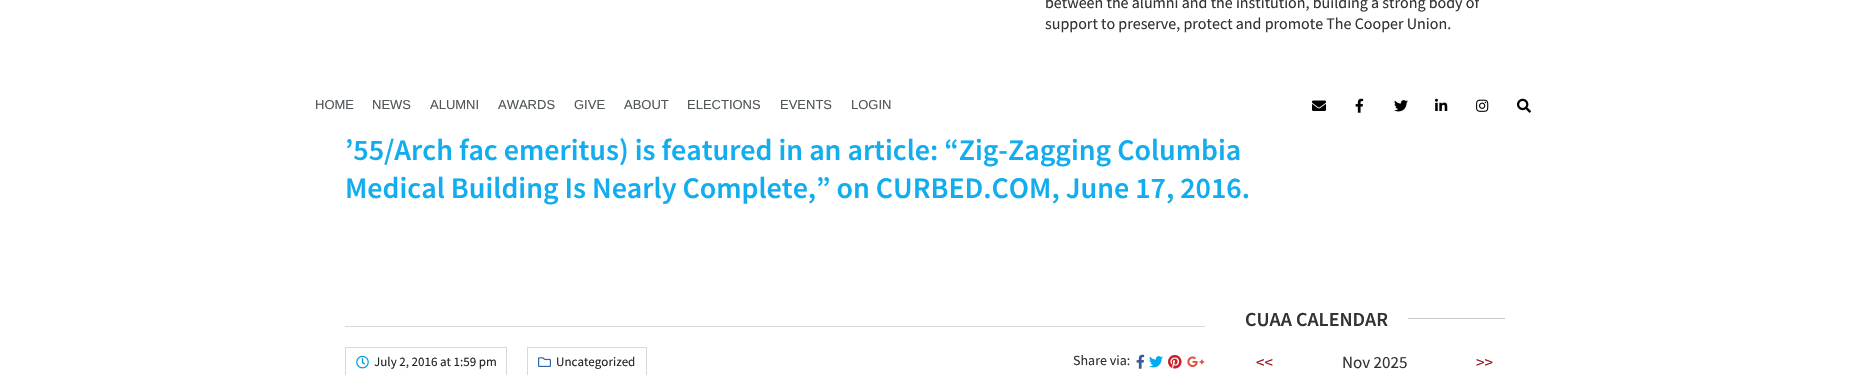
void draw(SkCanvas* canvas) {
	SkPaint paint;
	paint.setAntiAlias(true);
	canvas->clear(0xffffffff);
	SkFont f1(fontMgr->matchFamilyStyle("Source Sans Pro", SkFontStyle::Normal()), 16);
	f1.setSubpixel(true);
	paint.setColor(0xff333333);
	canvas->drawString("between the alumni and the institution, building a strong body of", 1045, 8, f1, paint);
	canvas->drawString("support to preserve, protect and promote The Cooper Union.", 1045, 29, f1, paint);
	SkFont f2(fontMgr->matchFamilyStyle("Liberation Sans", SkFontStyle::Normal()), 13);
	f2.setSubpixel(true);
	paint.setColor(0xff515659);
	canvas->drawString("HOME", 315, 109, f2, paint);
	canvas->drawString("NEWS", 372, 109, f2, paint);
	canvas->drawString("ALUMNI", 430, 109, f2, paint);
	canvas->drawString("AWARDS", 498, 109, f2, paint);
	canvas->drawString("GIVE", 574, 109, f2, paint);
	canvas->drawString("ABOUT", 624, 109, f2, paint);
	canvas->drawString("ELECTIONS", 687, 109, f2, paint);
	canvas->drawString("EVENTS", 780, 109, f2, paint);
	canvas->drawString("LOGIN", 851, 109, f2, paint);
	canvas->drawImageRect(SkImages::DeferredFromEncodedData(SkData::MakeFromFileName("img1.png")), SkRect::MakeXYWH(1312, 100, 14, 11), SkSamplingOptions());
	canvas->drawImageRect(SkImages::DeferredFromEncodedData(SkData::MakeFromFileName("img2.png")), SkRect::MakeXYWH(1355, 98, 9, 15), SkSamplingOptions());
	canvas->drawImageRect(SkImages::DeferredFromEncodedData(SkData::MakeFromFileName("img3.png")), SkRect::MakeXYWH(1394, 100, 14, 12), SkSamplingOptions());
	canvas->drawImageRect(SkImages::DeferredFromEncodedData(SkData::MakeFromFileName("img4.png")), SkRect::MakeXYWH(1435, 98, 13, 13), SkSamplingOptions());
	canvas->drawImageRect(SkImages::DeferredFromEncodedData(SkData::MakeFromFileName("img5.png")), SkRect::MakeXYWH(1476, 99, 13, 13), SkSamplingOptions());
	canvas->drawImageRect(SkImages::DeferredFromEncodedData(SkData::MakeFromFileName("img6.png")), SkRect::MakeXYWH(1517, 98, 14, 15), SkSamplingOptions());
	SkFont f3(fontMgr->matchFamilyStyle("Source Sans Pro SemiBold", SkFontStyle(600, SkFontStyle::kNormal_Width, SkFontStyle::kUpright_Slant)), 30);
	f3.setSubpixel(true);
	paint.setColor(0xff12adee);
	canvas->drawString("’55/Arch fac emeritus) is featured in an article: “Zig-Zagging Columbia", 345, 160, f3, paint);
	canvas->drawString("Medical Building Is Nearly Complete,” on CURBED.COM, June 17, 2016.", 345, 198, f3, paint);
	paint.setColor(0xffd9d9d9);
	canvas->drawRect(SkRect::MakeXYWH(345, 326, 860, 1), paint);
	paint.setStroke(true);
	paint.setStrokeWidth(1);
	canvas->drawRect(SkRect::MakeXYWH(345.5, 347.5, 161, 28), paint);
	canvas->drawImageRect(SkImages::DeferredFromEncodedData(SkData::MakeFromFileName("img7.png")), SkRect::MakeXYWH(356, 355, 13, 14), SkSamplingOptions());
	SkFont f4(fontMgr->matchFamilyStyle("Source Sans Pro", SkFontStyle::Normal()), 13);
	f4.setSubpixel(true);
	paint.setStroke(false);
	paint.setColor(0xff252525);
	canvas->drawString("July 2, 2016 at 1:59 pm", 374, 366, f4, paint);
	paint.setStroke(true);
	paint.setColor(0xffd9d9d9);
	canvas->drawRect(SkRect::MakeXYWH(527.5, 347.5, 119, 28), paint);
	canvas->drawImageRect(SkImages::DeferredFromEncodedData(SkData::MakeFromFileName("img8.png")), SkRect::MakeXYWH(538, 357, 13, 10), SkSamplingOptions());
	paint.setStroke(false);
	paint.setColor(0xff252525);
	canvas->drawString("Uncategorized", 556, 366, f4, paint);
	SkFont f5(fontMgr->matchFamilyStyle("Source Sans Pro", SkFontStyle::Normal()), 14);
	f5.setSubpixel(true);
	paint.setColor(0xff333333);
	canvas->drawString("Share via:", 1073, 365, f5, paint);
	canvas->drawImageRect(SkImages::DeferredFromEncodedData(SkData::MakeFromFileName("img9.png")), SkRect::MakeXYWH(1136, 354, 9, 15), SkSamplingOptions());
	canvas->drawImageRect(SkImages::DeferredFromEncodedData(SkData::MakeFromFileName("img10.png")), SkRect::MakeXYWH(1149, 356, 14, 12), SkSamplingOptions());
	canvas->drawImageRect(SkImages::DeferredFromEncodedData(SkData::MakeFromFileName("img11.png")), SkRect::MakeXYWH(1168, 355, 14, 14), SkSamplingOptions());
	canvas->drawImageRect(SkImages::DeferredFromEncodedData(SkData::MakeFromFileName("img12.png")), SkRect::MakeXYWH(1187, 356, 18, 11), SkSamplingOptions());
	paint.setColor(0xffc7c7c7);
	canvas->drawRect(SkRect::MakeXYWH(1408, 318, 97, 1), paint);
	SkFont f6(fontMgr->matchFamilyStyle("Source Sans Pro SemiBold", SkFontStyle(600, SkFontStyle::kNormal_Width, SkFontStyle::kUpright_Slant)), 20);
	f6.setSubpixel(true);
	paint.setColor(0xff333333);
	canvas->drawString("CUAA CALENDAR", 1245, 326, f6, paint);
	SkFont f7(fontMgr->matchFamilyStyle("Source Sans Pro", SkFontStyle::Normal()), 17);
	f7.setSubpixel(true);
	paint.setColor(0xff97161a);
	canvas->drawString("<<", 1256, 368, f7, paint);
	paint.setColor(0xff333333);
	canvas->drawString("Nov 2025", 1342, 368, f7, paint);
	paint.setColor(0xff97161a);
	canvas->drawString(">>", 1476, 368, f7, paint);
}
